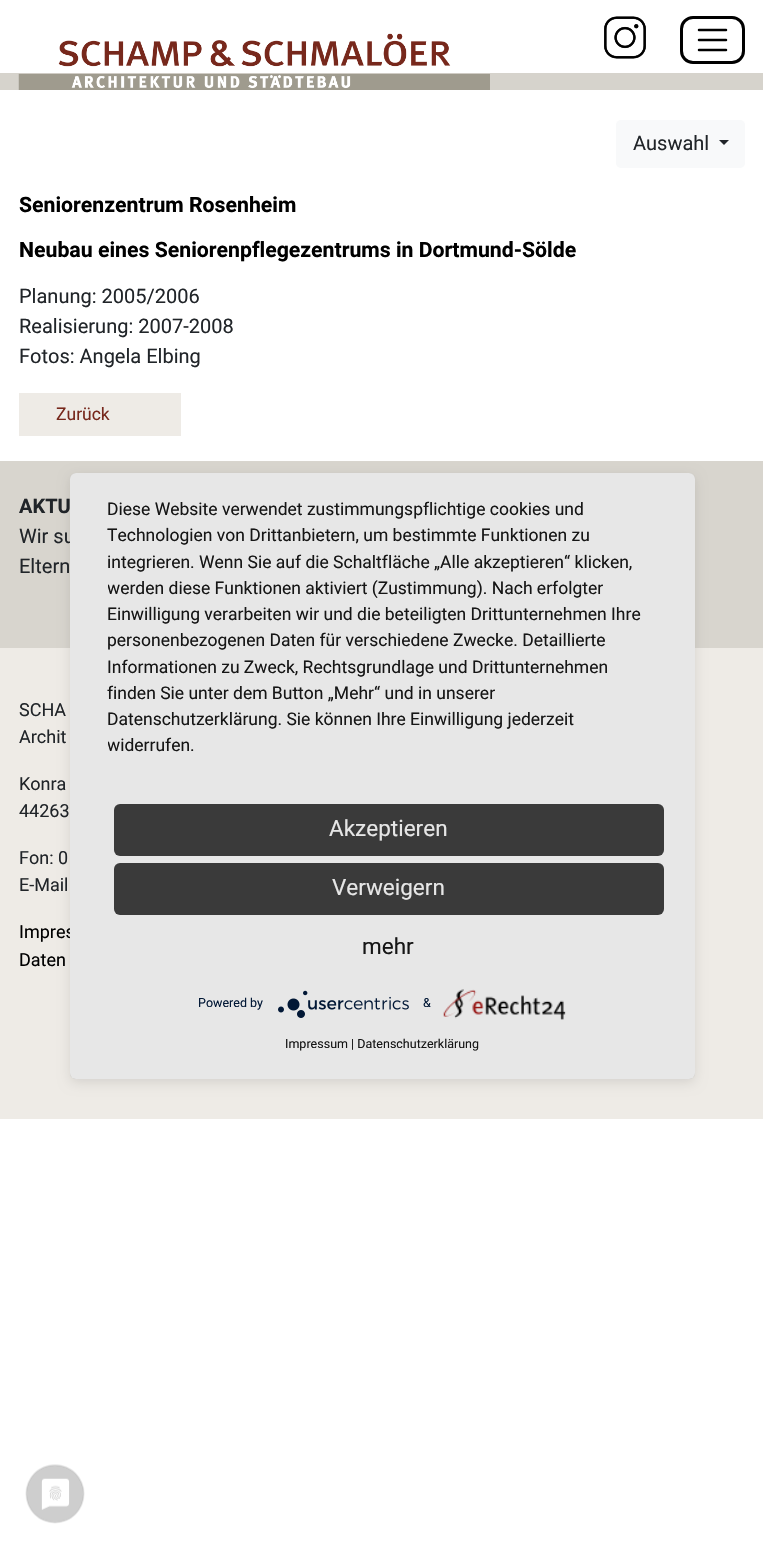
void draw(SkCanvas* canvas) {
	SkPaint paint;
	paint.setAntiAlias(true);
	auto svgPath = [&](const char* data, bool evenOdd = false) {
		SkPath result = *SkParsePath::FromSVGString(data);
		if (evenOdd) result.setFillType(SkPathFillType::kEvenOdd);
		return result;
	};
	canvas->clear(0xffffffff);
	paint.setColor(0xffd6d3cc);
	canvas->drawRect(SkRect::MakeXYWH(0, 73, 763, 17), paint);
	canvas->drawImageRect(SkImages::DeferredFromEncodedData(SkData::MakeFromFileName("img1.png")), SkRect::MakeXYWH(18, 33, 472, 57), SkSamplingOptions());
	canvas->drawImageRect(SkImages::DeferredFromEncodedData(SkData::MakeFromFileName("img2.png")), SkRect::MakeXYWH(604, 16, 42, 43), SkSamplingOptions());
	paint.setStroke(true);
	paint.setStrokeWidth(3);
	paint.setColor(0xff000000);
	canvas->drawRoundRect(SkRect::MakeXYWH(681.5, 17.5, 62, 45), 11.5, 11.5, paint);
	paint.setStrokeWidth(2.5);
	paint.setStrokeCap(SkPaint::kRound_Cap);
	canvas->drawPath(svgPath("M699 30H726M699 40H726M699 50H726"), paint);
	paint.setStroke(false);
	paint.setColor(0xfff8f9fa);
	canvas->drawRoundRect(SkRect::MakeXYWH(616, 120, 129, 48), 5, 5, paint);
	SkFont f1(fontMgr->matchFamilyStyle("Roboto", SkFontStyle::Normal()), 20);
	f1.setSubpixel(true);
	paint.setColor(0xff212529);
	canvas->drawString("Auswahl", 633, 150, f1, paint);
	canvas->drawPath(svgPath("M719 140H729L724 145Z"), paint);
	SkFont f2(fontMgr->matchFamilyStyle("Roboto", SkFontStyle::Bold()), 21.25);
	f2.setSubpixel(true);
	paint.setColor(0xff000000);
	canvas->drawString("Seniorenzentrum Rosenheim", 19, 212, f2, paint);
	canvas->drawString("Neubau eines Seniorenpflegezentrums in Dortmund-Sölde", 19, 257, f2, paint);
	paint.setColor(0xff212529);
	canvas->drawString("Planung: 2005/2006", 19, 303, f1, paint);
	canvas->drawString("Realisierung: 2007-2008", 19, 333, f1, paint);
	canvas->drawString("Fotos: Angela Elbing", 19, 363, f1, paint);
	paint.setColor(0xffeeebe6);
	canvas->drawRect(SkRect::MakeXYWH(19, 393, 162, 43), paint);
	SkFont f3(fontMgr->matchFamilyStyle("Roboto", SkFontStyle::Normal()), 17.5);
	f3.setSubpixel(true);
	paint.setColor(0xff77281c);
	canvas->drawString("Zurück", 56, 420, f3, paint);
	paint.setColor(0xffeeebe6);
	canvas->drawRect(SkRect::MakeXYWH(0, 648, 763, 471), paint);
	paint.setColor(0xffd8d5ce);
	canvas->drawRect(SkRect::MakeXYWH(0, 461, 763, 187), paint);
	SkFont f4(fontMgr->matchFamilyStyle("Roboto", SkFontStyle::Bold()), 20);
	f4.setSubpixel(true);
	paint.setColor(0xff212529);
	canvas->drawString("AKTU", 19, 513, f4, paint);
	canvas->drawString("Wir su", 19, 543, f1, paint);
	canvas->drawString("Eltern", 19, 573, f1, paint);
	SkFont f5(fontMgr->matchFamilyStyle("Roboto", SkFontStyle::Normal()), 18);
	f5.setSubpixel(true);
	canvas->drawString("SCHA", 19, 716, f5, paint);
	canvas->drawString("Archit", 19, 743, f5, paint);
	canvas->drawString("Konra", 19, 790, f5, paint);
	canvas->drawString("44263", 19, 817, f5, paint);
	canvas->drawString("Fon: 0", 19, 864, f5, paint);
	canvas->drawString("E-Mail", 19, 891, f5, paint);
	paint.setColor(0xff000000);
	canvas->drawString("Impres", 19, 938, f5, paint);
	canvas->drawString("Daten", 19, 966, f5, paint);
	paint.setColor(0x1a000000);
	paint.setMaskFilter(SkMaskFilter::MakeBlur(kNormal_SkBlurStyle, 6));
	canvas->drawRoundRect(SkRect::MakeXYWH(70, 476, 625, 607), 6, 6, paint);
	paint.setMaskFilter(nullptr);
	canvas->save();
	canvas->clipPath(svgPath("M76 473H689C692.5 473 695 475.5 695 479V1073C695 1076.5 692.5 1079 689 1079H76C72.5 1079 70 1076.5 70 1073V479C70 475.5 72.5 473 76 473Z"), true);
	paint.setColor(0x4d000000);
	paint.setMaskFilter(SkMaskFilter::MakeBlur(kNormal_SkBlurStyle, 22.5));
	canvas->drawRect(SkRect::MakeXYWH(70, 480, 625, 606), paint);
	paint.setMaskFilter(nullptr);
	canvas->restore();
	paint.setColor(0xffe7e7e7);
	canvas->drawRoundRect(SkRect::MakeXYWH(70, 473, 625, 606), 6, 6, paint);
	paint.setColor(0xff161616);
	canvas->drawString("Diese Website verwendet zustimmungspflichtige cookies und", 107, 515, f3, paint);
	canvas->drawString("Technologien von Drittanbietern, um bestimmte Funktionen zu", 107, 541, f3, paint);
	canvas->drawString("integrieren. Wenn Sie auf die Schaltfläche „Alle akzeptieren“ klicken,", 107, 568, f3, paint);
	canvas->save();
	canvas->clipRect(SkRect::MakeXYWH(108, 498, 550, 287));
	canvas->drawString("werden diese Funktionen aktiviert (Zustimmung). Nach erfolgter", 107, 594, f3, paint);
	canvas->restore();
	canvas->drawString("Einwilligung verarbeiten wir und die beteiligten Drittunternehmen Ihre", 107, 620, f3, paint);
	canvas->drawString("personenbezogenen Daten für verschiedene Zwecke. Detaillierte", 107, 646, f3, paint);
	canvas->drawString("Informationen zu Zweck, Rechtsgrundlage und Drittunternehmen", 107, 673, f3, paint);
	canvas->drawString("finden Sie unter dem Button „Mehr“ und in unserer", 107, 699, f3, paint);
	canvas->drawString("Datenschutzerklärung. Sie können Ihre Einwilligung jederzeit", 107, 725, f3, paint);
	canvas->save();
	canvas->clipRect(SkRect::MakeXYWH(108, 498, 550, 287));
	canvas->drawString("widerrufen.", 107, 751, f3, paint);
	canvas->restore();
	paint.setColor(0xff3a3a3a);
	canvas->drawRoundRect(SkRect::MakeXYWH(114, 804, 550, 52), 6, 6, paint);
	SkFont f6(fontMgr->matchFamilyStyle("Roboto", SkFontStyle::Normal()), 22.5);
	f6.setSubpixel(true);
	paint.setColor(0xffe6e6e6);
	canvas->drawString("Akzeptieren", 329, 836, f6, paint);
	paint.setColor(0xff3a3a3a);
	canvas->drawRoundRect(SkRect::MakeXYWH(114, 863, 550, 52), 6, 6, paint);
	paint.setColor(0xffe6e6e6);
	canvas->drawString("Verweigern", 332, 895, f6, paint);
	paint.setColor(0xff161616);
	canvas->drawString("mehr", 362, 954, f6, paint);
	SkFont f7(fontMgr->matchFamilyStyle("Roboto", SkFontStyle::Normal()), 12.5);
	f7.setSubpixel(true);
	paint.setColor(0xff021836);
	canvas->drawString("Powered by", 198, 1007, f7, paint);
	canvas->drawImageRect(SkImages::DeferredFromEncodedData(SkData::MakeFromFileName("img3.png")), SkRect::MakeXYWH(278, 990, 131, 28), SkSamplingOptions());
	canvas->drawString("&", 423, 1007, f7, paint);
	canvas->drawImageRect(SkImages::DeferredFromEncodedData(SkData::MakeFromFileName("img4.png")), SkRect::MakeXYWH(443, 989, 123, 31), SkSamplingOptions());
	paint.setColor(0xff161616);
	canvas->drawString("Impressum | Datenschutzerklärung", 285, 1048, f7, paint);
	canvas->drawImageRect(SkImages::DeferredFromEncodedData(SkData::MakeFromFileName("img5.png")), SkRect::MakeXYWH(25, 1464, 60, 60), SkSamplingOptions());
}
